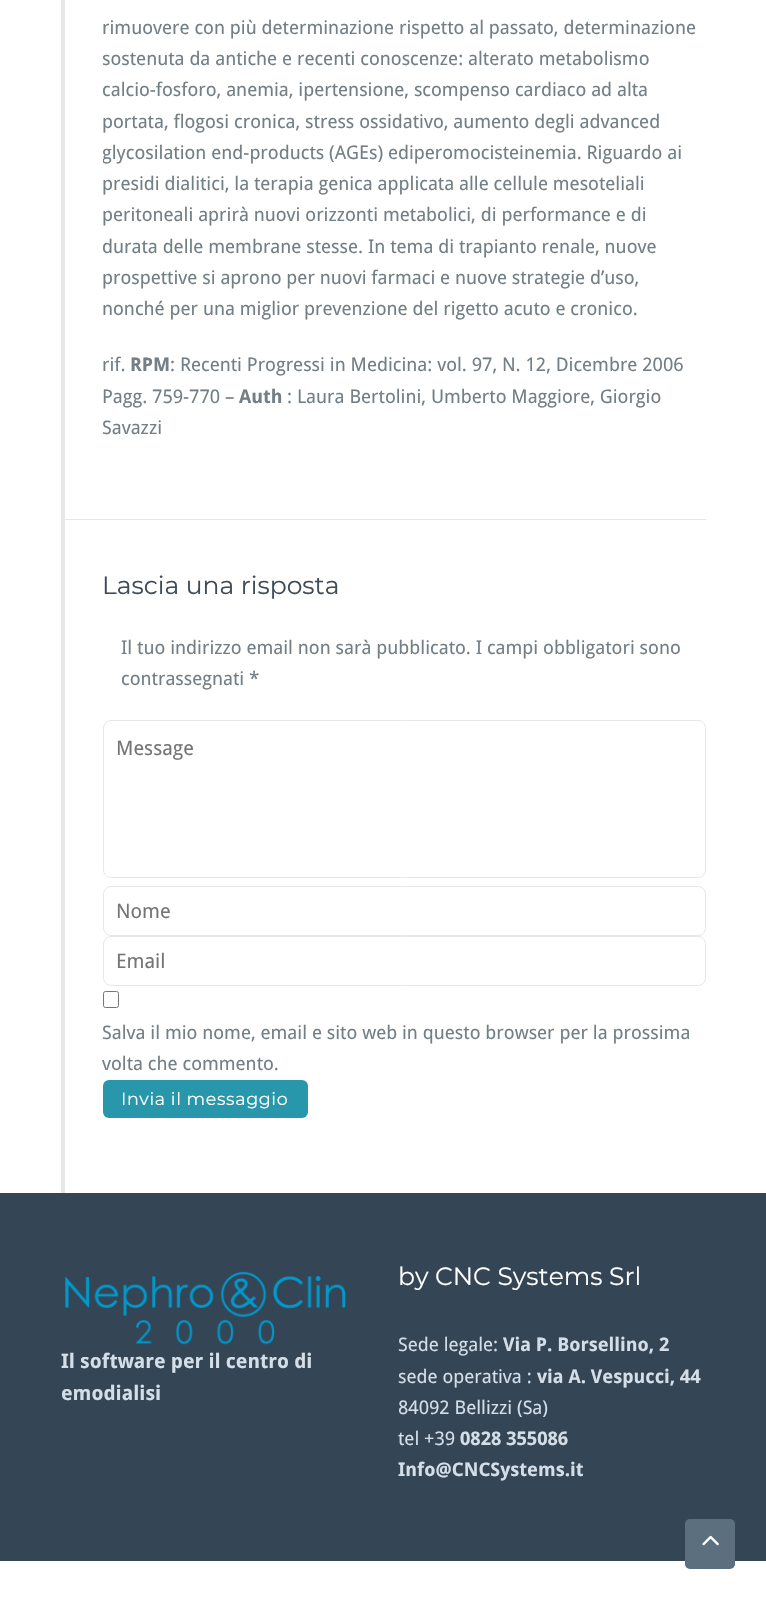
void draw(SkCanvas* canvas) {
	SkPaint paint;
	paint.setAntiAlias(true);
	auto spacedText = [&](const char* s, float x, float y, const SkFont& font, const SkPaint& ink, float letter, float word) {
		std::vector<SkGlyphID> glyphs(font.countText(s, strlen(s), SkTextEncoding::kUTF8));
		std::vector<float> xs(glyphs.size());
		font.textToGlyphs(s, strlen(s), SkTextEncoding::kUTF8, glyphs);
		font.getXPos(glyphs, xs, x);
		float extra = 0;
		for (size_t i = 0; i < glyphs.size(); i++) {
			xs[i] += extra;
			extra += letter + word * (glyphs[i] == font.unicharToGlyph(' '));
		}
		canvas->drawTextBlob(SkTextBlob::MakeFromPosHGlyphs(glyphs, xs, y, font), 0, 0, ink);
	};
	canvas->clear(0xffffffff);
	paint.setColor(0xffe4e8ea);
	canvas->drawRect(SkRect::MakeXYWH(61, 0, 4, 1193), paint);
	canvas->drawRect(SkRect::MakeXYWH(65, 519, 641, 1), paint);
	SkFont f1(fontMgr->matchFamilyStyle("Droid Sans", SkFontStyle::Normal()), 18.75);
	f1.setSubpixel(true);
	paint.setColor(0xff737f85);
	canvas->drawString("rimuovere con più determinazione rispetto al passato, determinazione", 102, 34, f1, paint);
	canvas->save();
	canvas->clipRect(SkRect::MakeXYWH(103, 0, 603, 469));
	canvas->drawString("sostenuta da antiche e recenti conoscenze: alterato metabolismo", 102, 65, f1, paint);
	canvas->restore();
	canvas->drawString("calcio-fosforo, anemia, ipertensione, scompenso cardiaco ad alta", 102, 96, f1, paint);
	canvas->drawString("portata, flogosi cronica, stress ossidativo, aumento degli advanced", 102, 128, f1, paint);
	canvas->save();
	canvas->clipRect(SkRect::MakeXYWH(103, 0, 603, 469));
	canvas->drawString("glycosilation end-products (AGEs) ediperomocisteinemia. Riguardo ai", 102, 159, f1, paint);
	canvas->restore();
	canvas->drawString("presidi dialitici, la terapia genica applicata alle cellule mesoteliali", 102, 190, f1, paint);
	canvas->drawString("peritoneali aprirà nuovi orizzonti metabolici, di performance e di", 102, 221, f1, paint);
	canvas->drawString("durata delle membrane stesse. In tema di trapianto renale, nuove", 102, 253, f1, paint);
	canvas->drawString("prospettive si aprono per nuovi farmaci e nuove strategie d’uso,", 102, 284, f1, paint);
	canvas->drawString("nonché per una miglior prevenzione del rigetto acuto e cronico.", 102, 315, f1, paint);
	canvas->drawString("rif.", 102, 371, f1, paint);
	SkFont f2(fontMgr->matchFamilyStyle("Droid Sans", SkFontStyle::Bold()), 18.75);
	f2.setSubpixel(true);
	canvas->drawString("RPM", 130, 371, f2, paint);
	canvas->drawString(": Recenti Progressi in Medicina: vol. 97, N. 12, Dicembre 2006", 170, 371, f1, paint);
	canvas->drawString("Pagg. 759-770 –", 102, 403, f1, paint);
	canvas->drawString("Auth", 239, 403, f2, paint);
	canvas->drawString(": Laura Bertolini, Umberto Maggiore, Giorgio", 287, 403, f1, paint);
	canvas->drawString("Savazzi", 102, 434, f1, paint);
	SkFont f3(fontMgr->matchFamilyStyle("Montserrat", SkFontStyle(100, SkFontStyle::kNormal_Width, SkFontStyle::kUpright_Slant)), 25);
	f3.setSubpixel(true);
	paint.setColor(0xff404b56);
	canvas->drawString("Lascia una risposta", 102, 594, f3, paint);
	paint.setColor(0xff737f85);
	canvas->drawString("Il tuo indirizzo email non sarà pubblicato. I campi obbligatori sono", 121, 654, f1, paint);
	canvas->drawString("contrassegnati *", 121, 685, f1, paint);
	paint.setStroke(true);
	paint.setStrokeWidth(1);
	paint.setColor(0xffe7e7e7);
	canvas->drawRoundRect(SkRect::MakeXYWH(103.5, 720.5, 602, 157), 7.5, 7.5, paint);
	SkFont f4(fontMgr->matchFamilyStyle("Droid Sans", SkFontStyle::Normal()), 20);
	f4.setSubpixel(true);
	paint.setStroke(false);
	paint.setColor(0xff757575);
	canvas->drawString("Message", 116, 755, f4, paint);
	paint.setStroke(true);
	paint.setColor(0xffe7e7e7);
	canvas->drawRoundRect(SkRect::MakeXYWH(103.5, 886.5, 602, 49), 7.5, 7.5, paint);
	paint.setStroke(false);
	paint.setColor(0xff757575);
	canvas->drawString("Nome", 116, 918, f4, paint);
	paint.setStroke(true);
	paint.setColor(0xffe7e7e7);
	canvas->drawRoundRect(SkRect::MakeXYWH(103.5, 936.5, 602, 49), 7.5, 7.5, paint);
	paint.setStroke(false);
	paint.setColor(0xff757575);
	canvas->drawString("Email", 116, 968, f4, paint);
	paint.setStroke(true);
	paint.setColor(0xff767676);
	canvas->drawRoundRect(SkRect::MakeXYWH(103.5, 991.5, 15, 16), 2, 2, paint);
	paint.setStroke(false);
	paint.setColor(0xff737f85);
	canvas->drawString("Salva il mio nome, email e sito web in questo browser per la prossima", 102, 1039, f1, paint);
	canvas->drawString("volta che commento.", 102, 1070, f1, paint);
	paint.setColor(0xff2997ab);
	canvas->drawRoundRect(SkRect::MakeXYWH(103, 1080, 205, 38), 6, 6, paint);
	SkFont f5(fontMgr->matchFamilyStyle("Montserrat", SkFontStyle(100, SkFontStyle::kNormal_Width, SkFontStyle::kUpright_Slant)), 17.5);
	f5.setSubpixel(true);
	paint.setColor(0xffffffff);
	spacedText("Invia il messaggio", 121, 1105, f5, paint, 0.6, 0);
	paint.setColor(0xff344656);
	canvas->drawRect(SkRect::MakeXYWH(0, 1193, 766, 368), paint);
	canvas->drawImageRect(SkImages::DeferredFromEncodedData(SkData::MakeFromFileName("img1.png")), SkRect::MakeXYWH(65, 1271, 281, 74), SkSamplingOptions());
	SkFont f6(fontMgr->matchFamilyStyle("Droid Sans", SkFontStyle::Bold()), 20);
	f6.setSubpixel(true);
	paint.setColor(0xffd3dee8);
	canvas->drawString("Il software per il centro di", 61, 1368, f6, paint);
	canvas->drawString("emodialisi", 61, 1400, f6, paint);
	paint.setColor(0xffffffff);
	canvas->drawString("by CNC Systems Srl", 398, 1285, f3, paint);
	paint.setColor(0xffd3dee8);
	canvas->drawString("Sede legale:", 398, 1351, f1, paint);
	canvas->drawString("Via P. Borsellino, 2", 503, 1351, f2, paint);
	canvas->drawString("sede operativa :", 398, 1383, f1, paint);
	canvas->drawString("via A. Vespucci, 44", 537, 1383, f2, paint);
	canvas->drawString("84092 Bellizzi (Sa)", 398, 1414, f1, paint);
	canvas->drawString("tel +39", 398, 1445, f1, paint);
	canvas->drawString("0828 355086", 460, 1445, f2, paint);
	canvas->drawString("Info@CNCSystems.it", 398, 1476, f2, paint);
	paint.setColor(0xff5b6f7f);
	canvas->drawRoundRect(SkRect::MakeXYWH(685, 1519, 50, 50), 5, 5, paint);
	canvas->drawImageRect(SkImages::DeferredFromEncodedData(SkData::MakeFromFileName("img2.png")), SkRect::MakeXYWH(702, 1535, 17, 11), SkSamplingOptions());
}
